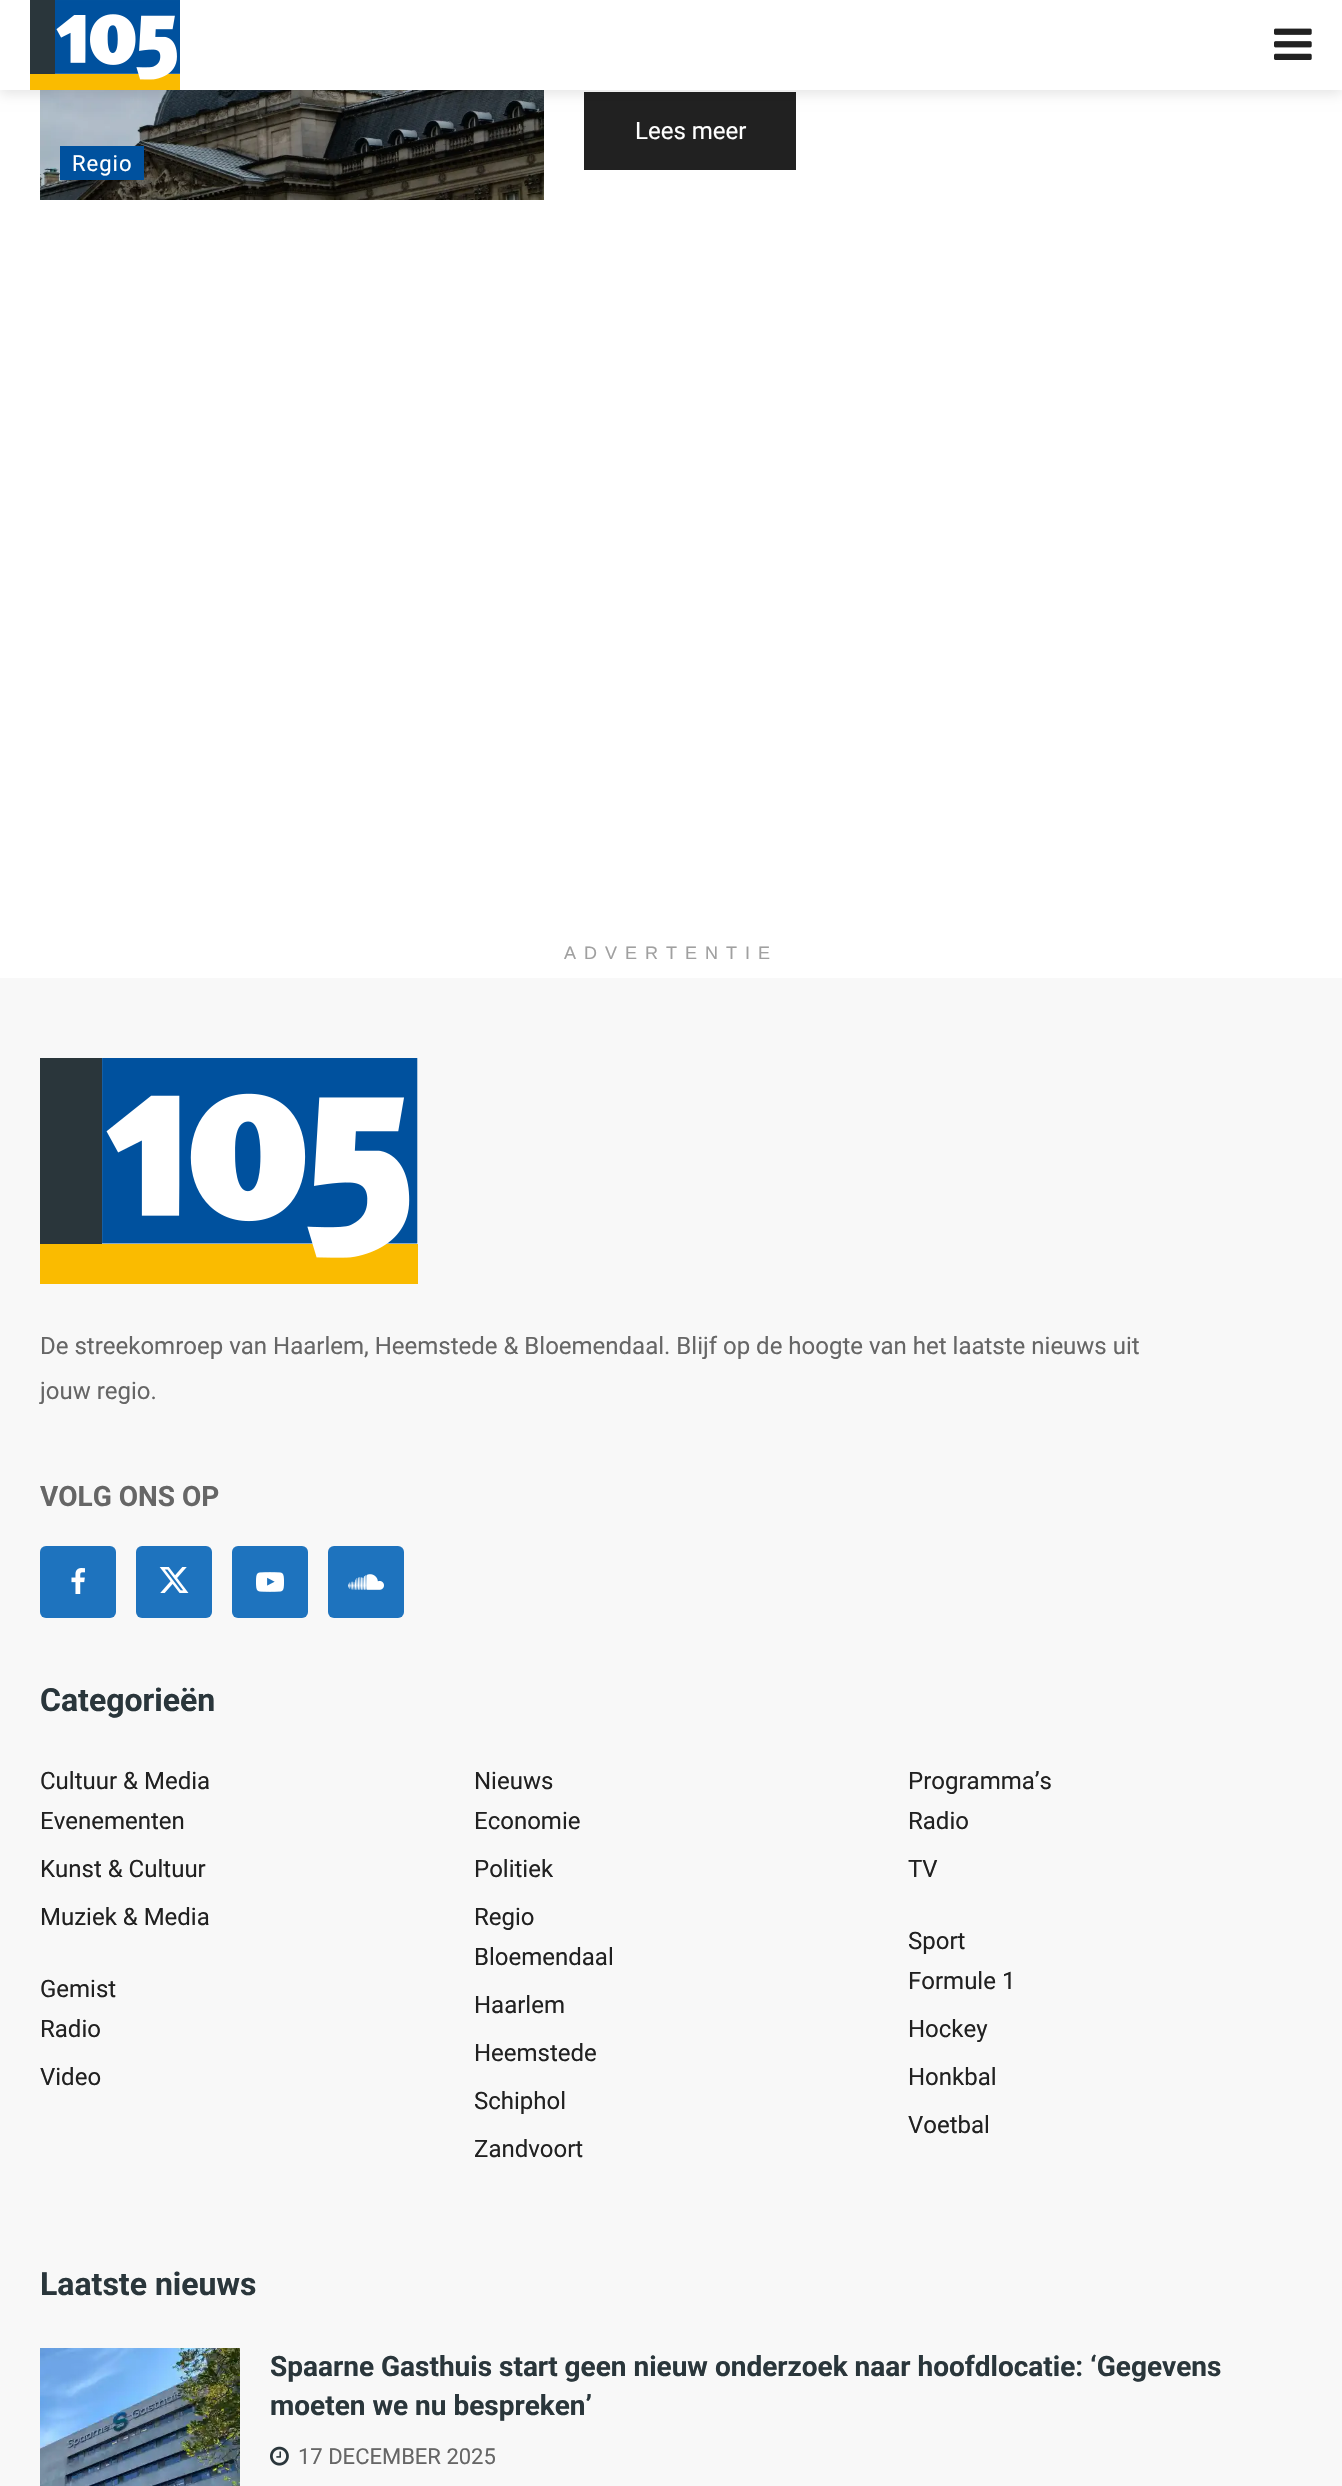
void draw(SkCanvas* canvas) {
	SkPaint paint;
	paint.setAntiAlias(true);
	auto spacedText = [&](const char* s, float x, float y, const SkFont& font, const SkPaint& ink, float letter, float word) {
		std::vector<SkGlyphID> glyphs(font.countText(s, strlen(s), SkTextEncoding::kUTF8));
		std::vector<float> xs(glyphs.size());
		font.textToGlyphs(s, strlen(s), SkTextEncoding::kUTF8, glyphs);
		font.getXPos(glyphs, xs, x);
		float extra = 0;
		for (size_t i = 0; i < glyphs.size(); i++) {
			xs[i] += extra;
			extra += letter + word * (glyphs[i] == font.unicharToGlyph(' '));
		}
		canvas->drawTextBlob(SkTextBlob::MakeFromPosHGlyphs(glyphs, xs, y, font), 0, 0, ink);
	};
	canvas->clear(0xffffffff);
	paint.setColor(0xff212121);
	canvas->drawRect(SkRect::MakeXYWH(584, 92, 212, 78), paint);
	canvas->drawImageRect(SkImages::DeferredFromEncodedData(SkData::MakeFromFileName("img3.png")), SkRect::MakeXYWH(40, 90, 504, 110), SkSamplingOptions());
	paint.setColor(0x1a000000);
	paint.setMaskFilter(SkMaskFilter::MakeBlur(kNormal_SkBlurStyle, 6));
	canvas->drawRect(SkRect::MakeXYWH(0, 4, 1342, 90), paint);
	paint.setMaskFilter(nullptr);
	paint.setColor(0xffffffff);
	canvas->drawRect(SkRect::MakeXYWH(0, 0, 1342, 90), paint);
	canvas->drawImageRect(SkImages::DeferredFromEncodedData(SkData::MakeFromFileName("img1.png")), SkRect::MakeXYWH(30, 0, 150, 90), SkSamplingOptions());
	canvas->drawImageRect(SkImages::DeferredFromEncodedData(SkData::MakeFromFileName("img2.png")), SkRect::MakeXYWH(1274, 28, 38, 32), SkSamplingOptions());
	SkFont f1(fontMgr->matchFamilyStyle("Roboto", SkFontStyle::Normal()), 24);
	f1.setSubpixel(true);
	canvas->drawString("Lees meer", 635, 139, f1, paint);
	paint.setColor(0xff00519e);
	canvas->drawRect(SkRect::MakeXYWH(60, 146, 84, 34), paint);
	SkFont f2(fontMgr->matchFamilyStyle("Roboto", SkFontStyle::Normal()), 22);
	f2.setSubpixel(true);
	paint.setColor(0xffffffff);
	spacedText("Regio", 72, 171, f2, paint, 1, 0);
	SkFont f3(fontMgr->matchFamilyStyle("Liberation Sans", SkFontStyle::Normal()), 18);
	f3.setSubpixel(true);
	paint.setColor(0xffa0a0a0);
	spacedText("ADVERTENTIE", 564, 959, f3, paint, 8, 0);
	paint.setColor(0xfff8f8f8);
	canvas->drawRect(SkRect::MakeXYWH(0, 978, 1342, 1508), paint);
	canvas->drawImageRect(SkImages::DeferredFromEncodedData(SkData::MakeFromFileName("img4.png")), SkRect::MakeXYWH(40, 1058, 378, 226), SkSamplingOptions());
	paint.setColor(0xff666666);
	canvas->drawString("De streekomroep van Haarlem, Heemstede & Bloemendaal. Blijf op de hoogte van het laatste nieuws uit", 40, 1354, f1, paint);
	canvas->drawString("jouw regio.", 40, 1399, f1, paint);
	SkFont f4(fontMgr->matchFamilyStyle("Roboto", SkFontStyle::Bold()), 28);
	f4.setSubpixel(true);
	canvas->drawString("VOLG ONS OP", 40, 1506, f4, paint);
	paint.setColor(0xff1e73be);
	canvas->drawRoundRect(SkRect::MakeXYWH(40, 1546, 76, 72), 6, 6, paint);
	canvas->drawImageRect(SkImages::DeferredFromEncodedData(SkData::MakeFromFileName("img5.png")), SkRect::MakeXYWH(71, 1568, 14, 26), SkSamplingOptions());
	canvas->drawRoundRect(SkRect::MakeXYWH(136, 1546, 76, 72), 6, 6, paint);
	canvas->drawImageRect(SkImages::DeferredFromEncodedData(SkData::MakeFromFileName("img6.png")), SkRect::MakeXYWH(159, 1567, 30, 26), SkSamplingOptions());
	canvas->drawRoundRect(SkRect::MakeXYWH(232, 1546, 76, 72), 6, 6, paint);
	canvas->drawImageRect(SkImages::DeferredFromEncodedData(SkData::MakeFromFileName("img7.png")), SkRect::MakeXYWH(256, 1572, 28, 20), SkSamplingOptions());
	canvas->drawRoundRect(SkRect::MakeXYWH(328, 1546, 76, 72), 6, 6, paint);
	canvas->drawImageRect(SkImages::DeferredFromEncodedData(SkData::MakeFromFileName("img8.png")), SkRect::MakeXYWH(348, 1574, 36, 16), SkSamplingOptions());
	SkFont f5(fontMgr->matchFamilyStyle("Roboto", SkFontStyle::Bold()), 32);
	f5.setSubpixel(true);
	paint.setColor(0xff2a363b);
	canvas->drawString("Categorieën", 40, 1711, f5, paint);
	paint.setColor(0xff212121);
	canvas->drawString("Cultuur & Media", 40, 1789, f1, paint);
	canvas->drawString("Evenementen", 40, 1829, f1, paint);
	canvas->drawString("Kunst & Cultuur", 40, 1877, f1, paint);
	canvas->drawString("Muziek & Media", 40, 1925, f1, paint);
	canvas->drawString("Nieuws", 474, 1789, f1, paint);
	canvas->drawString("Economie", 474, 1829, f1, paint);
	canvas->drawString("Politiek", 474, 1877, f1, paint);
	canvas->drawString("Regio", 474, 1925, f1, paint);
	canvas->drawString("Bloemendaal", 474, 1965, f1, paint);
	canvas->drawString("Haarlem", 474, 2013, f1, paint);
	canvas->drawString("Heemstede", 474, 2061, f1, paint);
	canvas->drawString("Schiphol", 474, 2109, f1, paint);
	canvas->drawString("Zandvoort", 474, 2157, f1, paint);
	canvas->drawString("Programma’s", 908, 1789, f1, paint);
	canvas->drawString("Radio", 908, 1829, f1, paint);
	canvas->drawString("TV", 908, 1877, f1, paint);
	canvas->drawString("Gemist", 40, 1997, f1, paint);
	canvas->drawString("Radio", 40, 2037, f1, paint);
	canvas->drawString("Video", 40, 2085, f1, paint);
	canvas->drawString("Sport", 908, 1949, f1, paint);
	canvas->drawString("Formule 1", 908, 1989, f1, paint);
	canvas->drawString("Hockey", 908, 2037, f1, paint);
	canvas->drawString("Honkbal", 908, 2085, f1, paint);
	canvas->drawString("Voetbal", 908, 2133, f1, paint);
	paint.setColor(0xff2a363b);
	canvas->drawString("Laatste nieuws", 40, 2295, f5, paint);
	canvas->drawImageRect(SkImages::DeferredFromEncodedData(SkData::MakeFromFileName("img9.png")), SkRect::MakeXYWH(40, 2348, 200, 138), SkSamplingOptions());
	canvas->drawString("Spaarne Gasthuis start geen nieuw onderzoek naar hoofdlocatie: ‘Gegevens", 270, 2376, f4, paint);
	canvas->drawString("moeten we nu bespreken’", 270, 2415, f4, paint);
	canvas->drawImageRect(SkImages::DeferredFromEncodedData(SkData::MakeFromFileName("img10.png")), SkRect::MakeXYWH(270, 2446, 19, 20), SkSamplingOptions());
	paint.setColor(0xff666666);
	canvas->drawString("17 DECEMBER 2025", 298, 2464, f2, paint);
}
